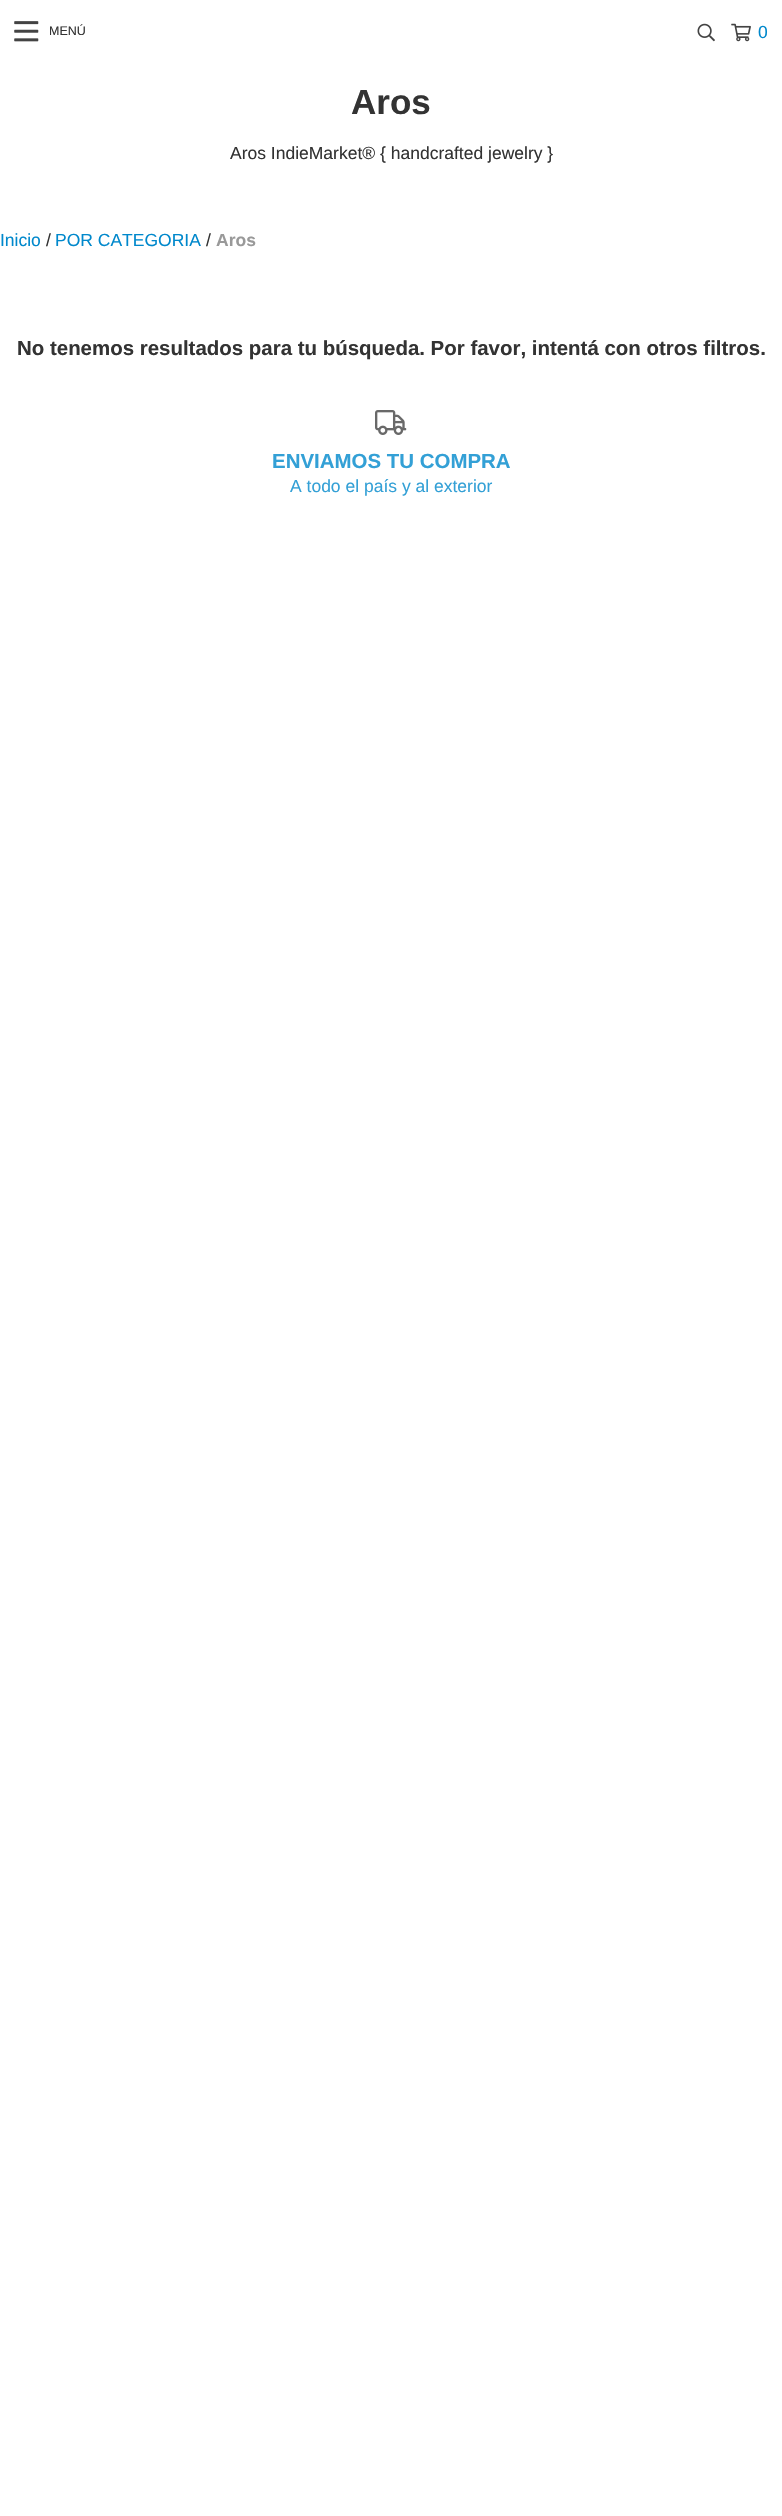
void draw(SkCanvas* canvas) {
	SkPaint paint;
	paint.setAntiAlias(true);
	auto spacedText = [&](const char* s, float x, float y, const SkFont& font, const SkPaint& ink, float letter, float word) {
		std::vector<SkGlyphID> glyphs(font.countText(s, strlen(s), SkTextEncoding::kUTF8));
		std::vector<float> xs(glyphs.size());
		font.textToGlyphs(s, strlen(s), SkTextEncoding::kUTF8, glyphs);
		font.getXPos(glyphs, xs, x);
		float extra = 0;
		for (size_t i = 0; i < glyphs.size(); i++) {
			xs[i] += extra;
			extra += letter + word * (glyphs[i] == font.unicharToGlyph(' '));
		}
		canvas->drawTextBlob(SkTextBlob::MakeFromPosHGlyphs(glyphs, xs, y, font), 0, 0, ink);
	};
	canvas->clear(0xffffffff);
	canvas->drawImageRect(SkImages::DeferredFromEncodedData(SkData::MakeFromFileName("img1.png")), SkRect::MakeXYWH(14, 21, 25, 21), SkSamplingOptions());
	SkFont f1(fontMgr->matchFamilyStyle("Liberation Sans", SkFontStyle::Normal()), 12.5);
	f1.setSubpixel(true);
	paint.setColor(0xff333333);
	canvas->drawString("MENÚ", 49, 35, f1, paint);
	canvas->drawImageRect(SkImages::DeferredFromEncodedData(SkData::MakeFromFileName("img2.png")), SkRect::MakeXYWH(697, 23, 18, 19), SkSamplingOptions());
	canvas->drawImageRect(SkImages::DeferredFromEncodedData(SkData::MakeFromFileName("img3.png")), SkRect::MakeXYWH(731, 23, 20, 19), SkSamplingOptions());
	SkFont f2(fontMgr->matchFamilyStyle("Liberation Sans", SkFontStyle::Normal()), 17.5);
	f2.setSubpixel(true);
	paint.setColor(0xff0088cc);
	spacedText("0", 758, 38, f2, paint, 1, 0);
	SkFont f3(fontMgr->matchFamilyStyle("Liberation Sans", SkFontStyle::Bold()), 35);
	f3.setSubpixel(true);
	paint.setColor(0xff333333);
	canvas->drawString("Aros", 351, 114, f3, paint);
	canvas->drawString("Aros IndieMarket® { handcrafted jewelry }", 230, 159, f2, paint);
	paint.setColor(0xff0088cc);
	canvas->drawString("Inicio", 0, 246, f2, paint);
	paint.setColor(0xff333333);
	canvas->drawString("/", 46, 246, f2, paint);
	paint.setColor(0xff0088cc);
	canvas->drawString("POR CATEGORIA", 55, 246, f2, paint);
	paint.setColor(0xff333333);
	canvas->drawString("/", 206, 246, f2, paint);
	SkFont f4(fontMgr->matchFamilyStyle("Liberation Sans", SkFontStyle::Bold()), 17.5);
	f4.setSubpixel(true);
	paint.setColor(0xff999999);
	canvas->drawString("Aros", 216, 246, f4, paint);
	SkFont f5(fontMgr->matchFamilyStyle("Liberation Sans", SkFontStyle::Bold()), 20.45);
	f5.setSubpixel(true);
	paint.setColor(0xff333333);
	canvas->drawString("No tenemos resultados para tu búsqueda. Por favor, intentá con otros filtros.", 17, 355, f5, paint);
	canvas->drawImageRect(SkImages::DeferredFromEncodedData(SkData::MakeFromFileName("img4.png")), SkRect::MakeXYWH(375, 410, 32, 25), SkSamplingOptions());
	paint.setColor(0xff33a0d6);
	canvas->drawString("ENVIAMOS TU COMPRA", 272, 468, f5, paint);
	canvas->drawString("A todo el país y al exterior", 290, 492, f2, paint);
}
